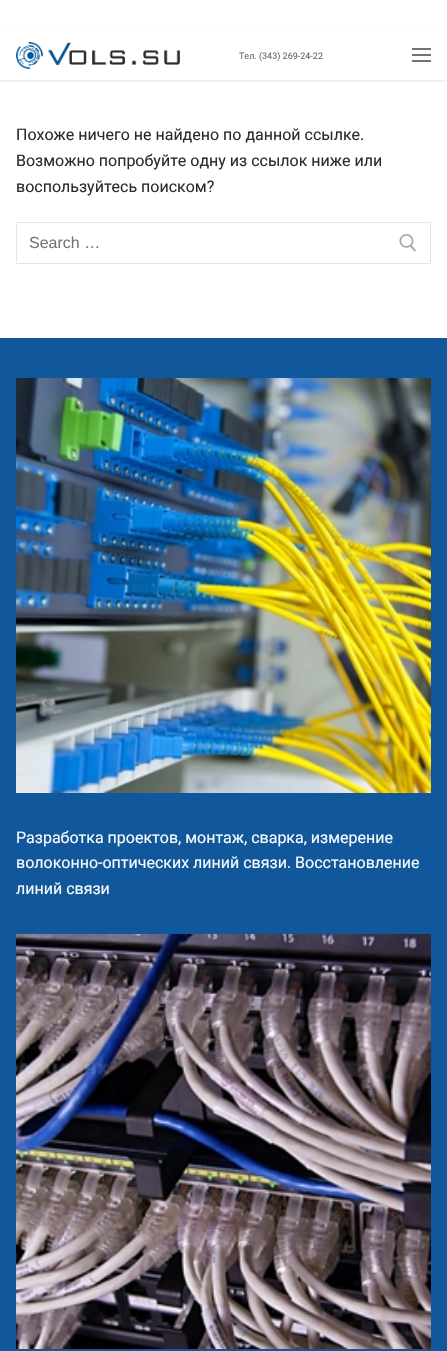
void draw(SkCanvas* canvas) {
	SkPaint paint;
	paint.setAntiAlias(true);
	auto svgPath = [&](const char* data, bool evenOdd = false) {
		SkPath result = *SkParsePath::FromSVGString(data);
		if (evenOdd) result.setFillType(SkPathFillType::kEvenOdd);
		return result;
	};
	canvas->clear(0xffffffff);
	canvas->save();
	canvas->clipPath(svgPath("M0 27H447V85H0ZM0 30H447V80H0Z", true), true);
	paint.setColor(0xffe1e5ea);
	paint.setMaskFilter(SkMaskFilter::MakeBlur(kNormal_SkBlurStyle, 1));
	canvas->drawRect(SkRect::MakeXYWH(0, 31, 447, 50), paint);
	paint.setMaskFilter(nullptr);
	canvas->restore();
	canvas->drawImageRect(SkImages::DeferredFromEncodedData(SkData::MakeFromFileName("img1.png")), SkRect::MakeXYWH(16, 42, 164, 27), SkSamplingOptions());
	SkFont f1(fontMgr->matchFamilyStyle("Roboto", SkFontStyle::Normal()), 9);
	f1.setSubpixel(true);
	paint.setColor(0xff666666);
	canvas->drawString("Тел. (343) 269-24-22", 239, 59, f1, paint);
	paint.setColor(0xff737373);
	canvas->drawRect(SkRect::MakeXYWH(412, 54, 19, 2), paint);
	canvas->drawRect(SkRect::MakeXYWH(412, 48, 19, 2), paint);
	canvas->drawRect(SkRect::MakeXYWH(412, 60, 19, 2), paint);
	SkFont f2(fontMgr->matchFamilyStyle("Roboto", SkFontStyle::Normal()), 16);
	f2.setSubpixel(true);
	paint.setColor(0xff2b2b2b);
	canvas->drawString("Похоже ничего не найдено по данной ссылке.", 16, 140, f2, paint);
	canvas->drawString("Возможно попробуйте одну из ссылок ниже или", 16, 166, f2, paint);
	canvas->drawString("воспользуйтесь поиском?", 16, 192, f2, paint);
	paint.setStroke(true);
	paint.setStrokeWidth(1);
	paint.setColor(0xffe5e5e5);
	canvas->drawRoundRect(SkRect::MakeXYWH(16.5, 222.5, 414, 41), 0.5, 0.5, paint);
	SkFont f3(fontMgr->matchFamilyStyle("Liberation Sans", SkFontStyle::Normal()), 16);
	f3.setSubpixel(true);
	paint.setStroke(false);
	paint.setColor(0xff757575);
	canvas->drawString("Search …", 29, 248, f3, paint);
	canvas->drawImageRect(SkImages::DeferredFromEncodedData(SkData::MakeFromFileName("img2.png")), SkRect::MakeXYWH(399, 234, 17, 18), SkSamplingOptions());
	paint.setColor(0xff11579b);
	canvas->drawRect(SkRect::MakeXYWH(0, 338, 447, 1013), paint);
	canvas->drawImageRect(SkImages::DeferredFromEncodedData(SkData::MakeFromFileName("img3.png")), SkRect::MakeXYWH(16, 378, 415, 415), SkSamplingOptions());
	paint.setColor(0xfffdfdfe);
	canvas->drawString("Разработка проектов, монтаж, сварка, измерение", 16, 843, f2, paint);
	canvas->drawString("волоконно-оптических линий связи. Восстановление", 16, 868, f2, paint);
	canvas->drawString("линий связи", 16, 894, f2, paint);
	canvas->drawImageRect(SkImages::DeferredFromEncodedData(SkData::MakeFromFileName("img4.png")), SkRect::MakeXYWH(16, 934, 415, 415), SkSamplingOptions());
}
